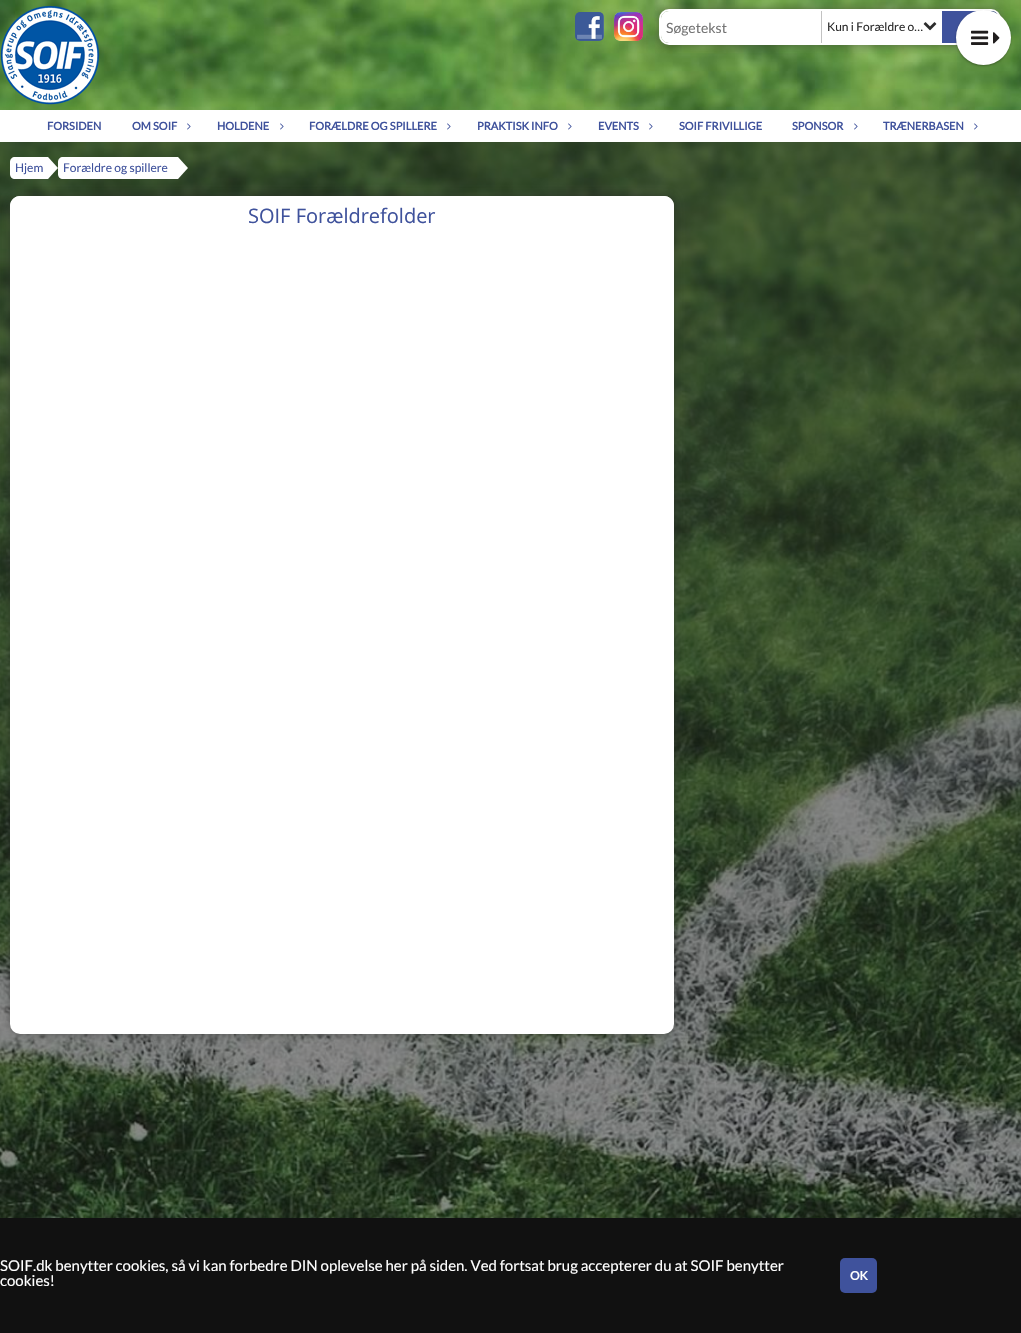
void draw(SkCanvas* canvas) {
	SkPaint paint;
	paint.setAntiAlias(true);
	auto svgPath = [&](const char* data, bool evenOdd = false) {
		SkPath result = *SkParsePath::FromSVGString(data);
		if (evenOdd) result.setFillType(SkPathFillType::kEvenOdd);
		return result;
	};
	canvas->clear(0xffffffff);
	canvas->drawImageRect(SkImages::DeferredFromEncodedData(SkData::MakeFromFileName("img1.png")), SkRect::MakeXYWH(0, 0, 1021, 1218), SkSamplingOptions());
	canvas->drawImageRect(SkImages::DeferredFromEncodedData(SkData::MakeFromFileName("img2.png")), SkRect::MakeXYWH(0, 5, 100, 100), SkSamplingOptions());
	canvas->drawImageRect(SkImages::DeferredFromEncodedData(SkData::MakeFromFileName("img3.png")), SkRect::MakeXYWH(575, 12, 29, 29), SkSamplingOptions());
	canvas->drawImageRect(SkImages::DeferredFromEncodedData(SkData::MakeFromFileName("img4.png")), SkRect::MakeXYWH(614, 12, 29, 29), SkSamplingOptions());
	paint.setColor(0x80303030);
	paint.setMaskFilter(SkMaskFilter::MakeBlur(kNormal_SkBlurStyle, 5));
	canvas->drawRoundRect(SkRect::MakeXYWH(659, 9, 342, 36), 10, 10, paint);
	paint.setMaskFilter(nullptr);
	paint.setStroke(true);
	paint.setStrokeWidth(2);
	paint.setColor(0xffffffff);
	canvas->drawRoundRect(SkRect::MakeXYWH(660, 10, 340, 34), 9, 9, paint);
	paint.setStroke(false);
	canvas->drawPath(svgPath("M669 11H825V43H669C664.5 43 661 39.5 661 35V19C661 14.5 664.5 11 669 11Z"), paint);
	SkFont f1(fontMgr->matchFamilyStyle("Lato", SkFontStyle::Normal()), 14);
	f1.setSubpixel(true);
	paint.setColor(0xff757575);
	canvas->drawString("Søgetekst", 666, 33, f1, paint);
	paint.setColor(0xffffffff);
	canvas->drawRect(SkRect::MakeXYWH(825, 11, 117, 32), paint);
	paint.setColor(0xffc2c2c2);
	canvas->drawRect(SkRect::MakeXYWH(821, 11, 1, 32), paint);
	SkFont f2(fontMgr->matchFamilyStyle("Lato", SkFontStyle::Normal()), 12);
	f2.setSubpixel(true);
	paint.setColor(0xff2c2c2c);
	canvas->drawString("Kun i Forældre o…", 827, 31, f2, paint);
	canvas->drawImageRect(SkImages::DeferredFromEncodedData(SkData::MakeFromFileName("img5.png")), SkRect::MakeXYWH(923, 22, 14, 9), SkSamplingOptions());
	paint.setColor(0xff3f529c);
	canvas->drawPath(svgPath("M942 11H991C995.5 11 999 14.5 999 19V35C999 39.5 995.5 43 991 43H942Z"), paint);
	paint.setColor(0x3d000000);
	paint.setMaskFilter(SkMaskFilter::MakeBlur(kNormal_SkBlurStyle, 1));
	canvas->drawRoundRect(SkRect::MakeXYWH(956, 11, 55, 55), 27.5, 27.5, paint);
	paint.setMaskFilter(nullptr);
	paint.setColor(0x1f000000);
	paint.setMaskFilter(SkMaskFilter::MakeBlur(kNormal_SkBlurStyle, 1.5));
	canvas->drawRoundRect(SkRect::MakeXYWH(956, 11, 55, 55), 27.5, 27.5, paint);
	paint.setMaskFilter(nullptr);
	paint.setColor(0xffffffff);
	canvas->drawCircle(983.5, 37.5, 27.5, paint);
	canvas->drawImageRect(SkImages::DeferredFromEncodedData(SkData::MakeFromFileName("img6.png")), SkRect::MakeXYWH(971, 30, 18, 15), SkSamplingOptions());
	canvas->drawImageRect(SkImages::DeferredFromEncodedData(SkData::MakeFromFileName("img7.png")), SkRect::MakeXYWH(993, 32, 7, 12), SkSamplingOptions());
	canvas->drawRect(SkRect::MakeXYWH(0, 110, 1021, 32), paint);
	SkFont f3(fontMgr->matchFamilyStyle("Lato", SkFontStyle::Bold()), 11);
	f3.setSubpixel(true);
	paint.setColor(0xff3f529c);
	canvas->drawString("FORSIDEN", 47, 130, f3, paint);
	canvas->drawString("OM SOIF", 132, 130, f3, paint);
	canvas->drawImageRect(SkImages::DeferredFromEncodedData(SkData::MakeFromFileName("img8.png")), SkRect::MakeXYWH(187, 123, 4, 7), SkSamplingOptions());
	canvas->drawString("HOLDENE", 217, 130, f3, paint);
	canvas->drawImageRect(SkImages::DeferredFromEncodedData(SkData::MakeFromFileName("img8.png")), SkRect::MakeXYWH(280, 123, 4, 7), SkSamplingOptions());
	canvas->drawString("FORÆLDRE OG SPILLERE", 309, 130, f3, paint);
	canvas->drawImageRect(SkImages::DeferredFromEncodedData(SkData::MakeFromFileName("img8.png")), SkRect::MakeXYWH(447, 123, 4, 7), SkSamplingOptions());
	canvas->drawString("PRAKTISK INFO", 477, 130, f3, paint);
	canvas->drawImageRect(SkImages::DeferredFromEncodedData(SkData::MakeFromFileName("img8.png")), SkRect::MakeXYWH(568, 123, 4, 7), SkSamplingOptions());
	canvas->drawString("EVENTS", 598, 130, f3, paint);
	canvas->drawImageRect(SkImages::DeferredFromEncodedData(SkData::MakeFromFileName("img8.png")), SkRect::MakeXYWH(649, 123, 4, 7), SkSamplingOptions());
	canvas->drawString("SOIF FRIVILLIGE", 679, 130, f3, paint);
	canvas->drawString("SPONSOR", 792, 130, f3, paint);
	canvas->drawImageRect(SkImages::DeferredFromEncodedData(SkData::MakeFromFileName("img8.png")), SkRect::MakeXYWH(854, 123, 4, 7), SkSamplingOptions());
	canvas->drawString("TRÆNERBASEN", 883, 130, f3, paint);
	canvas->drawImageRect(SkImages::DeferredFromEncodedData(SkData::MakeFromFileName("img8.png")), SkRect::MakeXYWH(974, 123, 4, 7), SkSamplingOptions());
	paint.setColor(0x801d1b1b);
	canvas->drawRect(SkRect::MakeXYWH(0, 142, 1021, 1076), paint);
	paint.setColor(0xffffffff);
	canvas->drawPath(svgPath("M15 157H48V179H15C12 179 10 177 10 174V162C10 159 12 157 15 157Z"), paint);
	paint.setColor(0xff3f529c);
	canvas->drawString("Hjem", 15, 172, f2, paint);
	paint.setColor(0xffffffff);
	canvas->drawPath(svgPath("M48 179V157L58 168Z"), paint);
	canvas->drawPath(svgPath("M63 157H178V179H63C60 179 58 177 58 174V162C58 159 60 157 63 157Z"), paint);
	paint.setColor(0xff3f529c);
	canvas->drawString("Forældre og spillere", 63, 172, f2, paint);
	paint.setColor(0xffffffff);
	canvas->drawPath(svgPath("M178 179V157L188 168Z"), paint);
	paint.setColor(0x80303030);
	paint.setMaskFilter(SkMaskFilter::MakeBlur(kNormal_SkBlurStyle, 5));
	canvas->drawRoundRect(SkRect::MakeXYWH(10, 196, 664, 838), 10, 10, paint);
	paint.setMaskFilter(nullptr);
	paint.setColor(0xffffffff);
	canvas->drawRoundRect(SkRect::MakeXYWH(10, 196, 664, 838), 10, 10, paint);
	canvas->drawPath(svgPath("M20 196H664C669.5 196 674 200.5 674 206V236H10V206C10 200.5 14.5 196 20 196Z"), paint);
	SkFont f4(fontMgr->matchFamilyStyle("Open Sans", SkFontStyle::Normal()), 20);
	f4.setSubpixel(true);
	paint.setColor(0xff3f529c);
	canvas->drawString("SOIF Forældrefolder", 248, 223, f4, paint);
	paint.setColor(0xff111111);
	canvas->drawRect(SkRect::MakeXYWH(0, 1218, 1021, 115), paint);
	SkFont f5(fontMgr->matchFamilyStyle("Lato", SkFontStyle::Normal()), 15);
	f5.setSubpixel(true);
	paint.setColor(0xffffffff);
	canvas->drawString("SOIF.dk benytter cookies, så vi kan forbedre DIN oplevelse her på siden. Ved fortsat brug accepterer du at SOIF benytter", 0, 1271, f5, paint);
	canvas->drawString("cookies!", 0, 1286, f5, paint);
	paint.setColor(0xff3f529c);
	canvas->drawRoundRect(SkRect::MakeXYWH(840, 1258, 37, 35), 5, 5, paint);
	SkFont f6(fontMgr->matchFamilyStyle("Lato", SkFontStyle::Bold()), 12);
	f6.setSubpixel(true);
	paint.setColor(0xffffffff);
	canvas->drawString("OK", 850, 1280, f6, paint);
}
